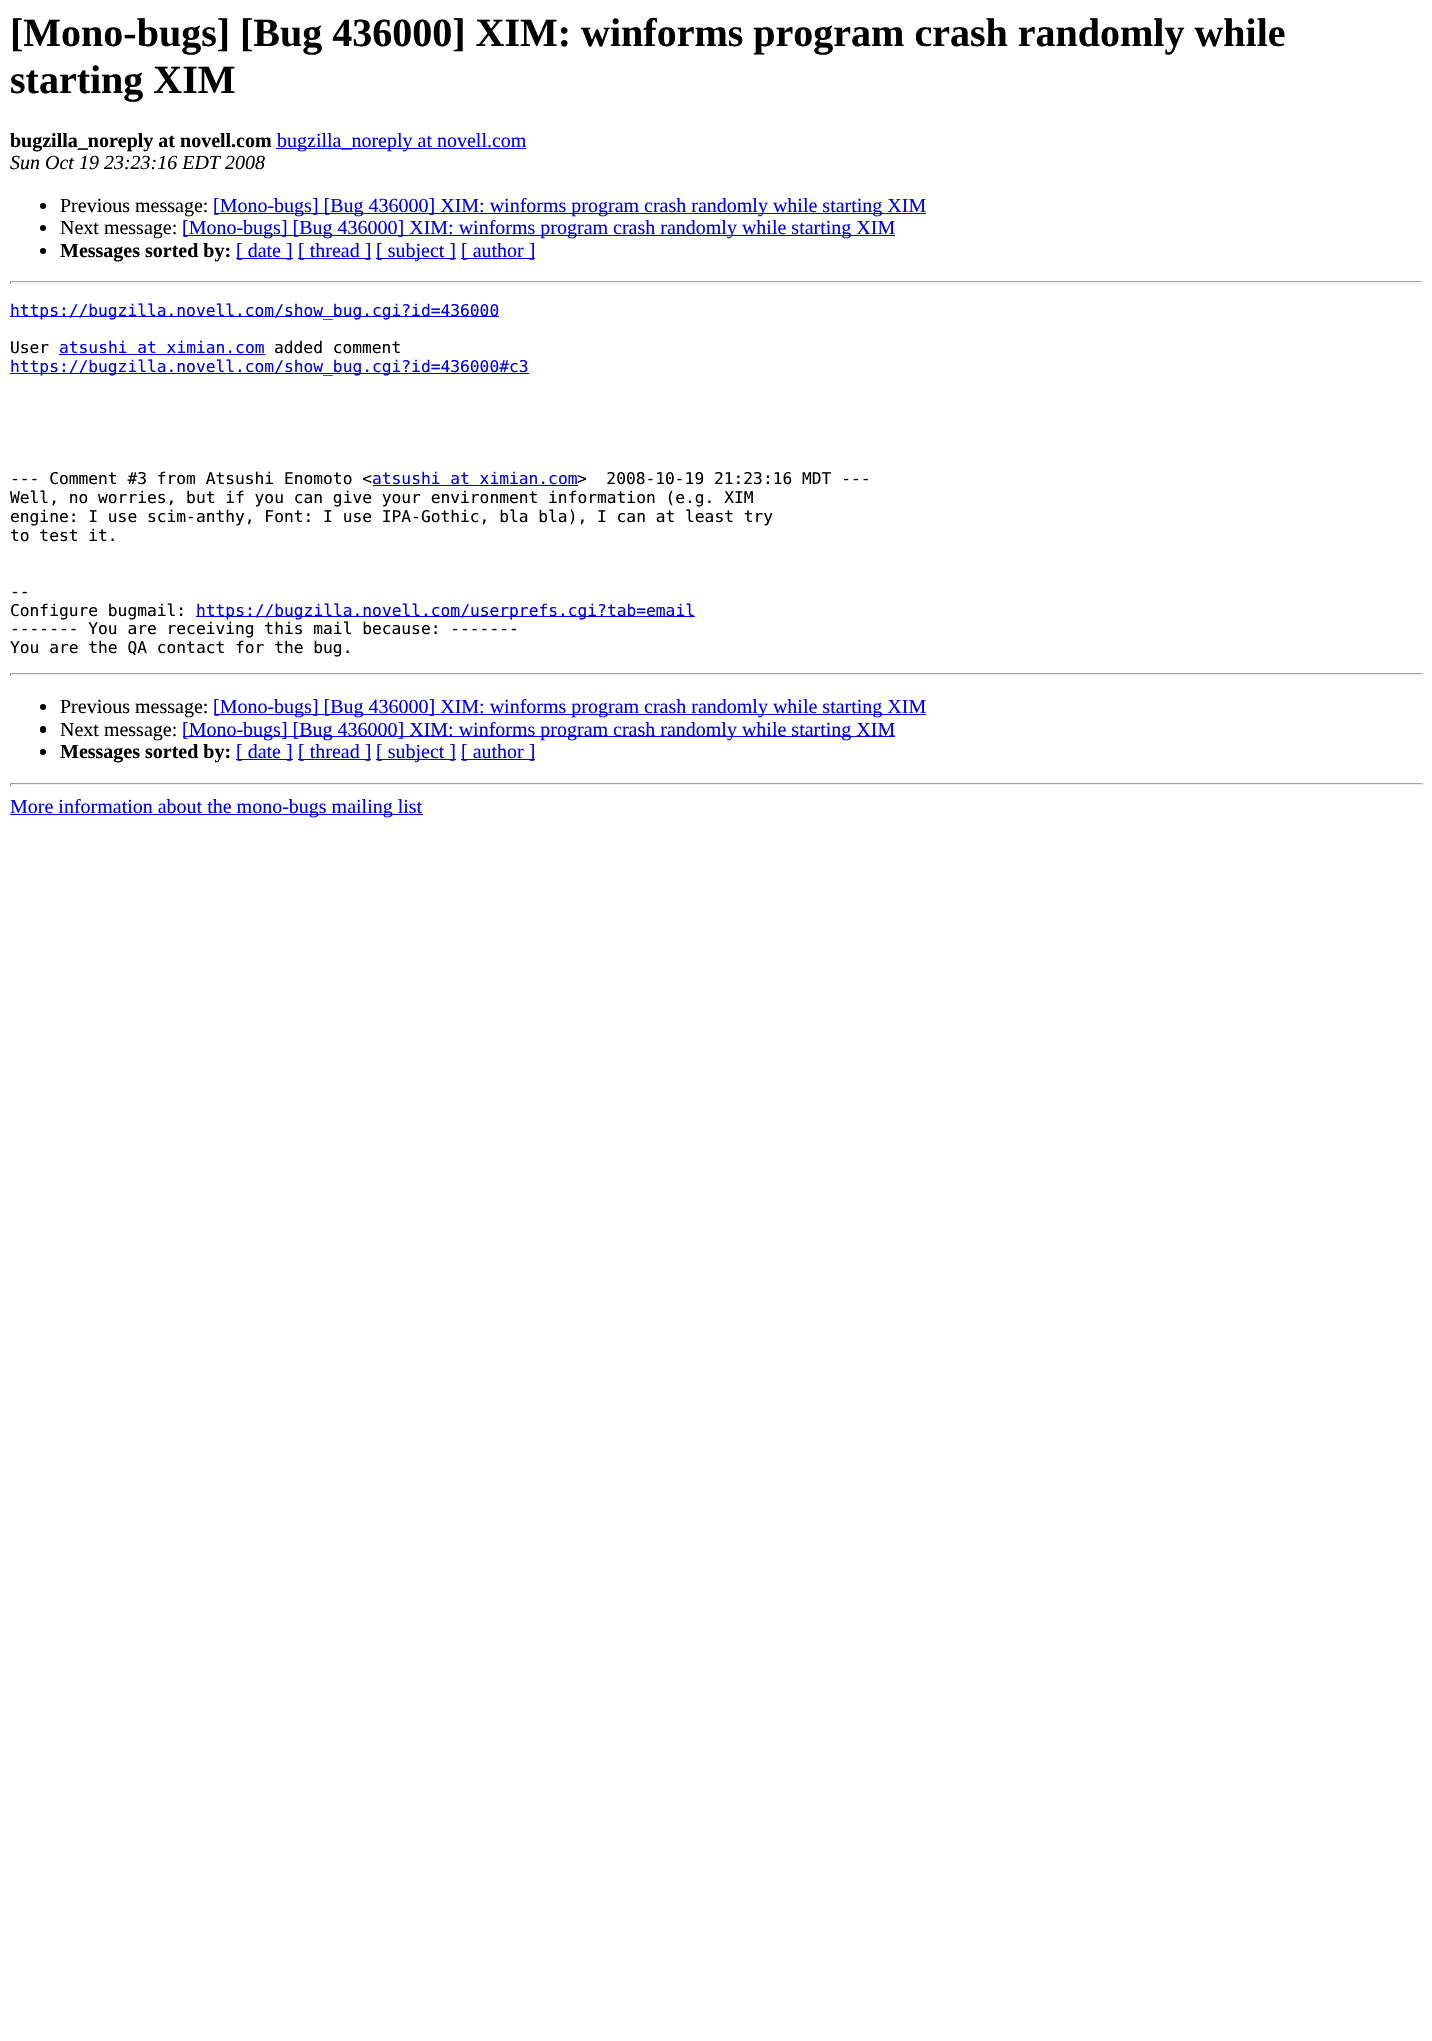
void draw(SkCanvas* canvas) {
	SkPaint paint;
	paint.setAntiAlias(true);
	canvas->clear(0xffffffff);
	SkFont f1(fontMgr->matchFamilyStyle("Liberation Serif", SkFontStyle::Bold()), 40);
	f1.setSubpixel(true);
	paint.setColor(0xff000000);
	canvas->drawString("[Mono-bugs] [Bug 436000] XIM: winforms program crash randomly while", 10, 46, f1, paint);
	canvas->drawString("starting XIM", 10, 93, f1, paint);
	SkFont f2(fontMgr->matchFamilyStyle("Liberation Serif", SkFontStyle::Bold()), 20);
	f2.setSubpixel(true);
	canvas->drawString("bugzilla_noreply at novell.com", 10, 147, f2, paint);
	paint.setColor(0xff0000ee);
	canvas->drawRect(SkRect::MakeXYWH(276, 148, 250, 1), paint);
	SkFont f3(fontMgr->matchFamilyStyle("Liberation Serif", SkFontStyle::Normal()), 20);
	f3.setSubpixel(true);
	canvas->drawString("bugzilla_noreply at novell.com", 277, 147, f3, paint);
	SkFont f4(fontMgr->matchFamilyStyle("Liberation Serif", SkFontStyle::Italic()), 20);
	f4.setSubpixel(true);
	paint.setColor(0xff000000);
	canvas->drawString("Sun Oct 19 23:23:16 EDT 2008", 10, 169, f4, paint);
	canvas->drawCircle(43, 206, 3, paint);
	canvas->drawString("Previous message:", 60, 212, f3, paint);
	paint.setColor(0xff0000ee);
	canvas->drawRect(SkRect::MakeXYWH(214, 213, 712, 1), paint);
	canvas->drawString("[Mono-bugs] [Bug 436000] XIM: winforms program crash randomly while starting XIM", 213, 212, f3, paint);
	paint.setColor(0xff000000);
	canvas->drawCircle(43, 228, 3, paint);
	canvas->drawString("Next message:", 60, 234, f3, paint);
	paint.setColor(0xff0000ee);
	canvas->drawRect(SkRect::MakeXYWH(183, 235, 712, 1), paint);
	canvas->drawString("[Mono-bugs] [Bug 436000] XIM: winforms program crash randomly while starting XIM", 182, 234, f3, paint);
	paint.setColor(0xff000000);
	canvas->drawCircle(43, 251, 3, paint);
	canvas->drawString("Messages sorted by:", 60, 257, f2, paint);
	paint.setColor(0xff0000ee);
	canvas->drawRect(SkRect::MakeXYWH(236, 258, 57, 1), paint);
	canvas->drawString("[ date ]", 236, 257, f3, paint);
	canvas->drawRect(SkRect::MakeXYWH(298, 258, 73, 1), paint);
	canvas->drawString("[ thread ]", 298, 257, f3, paint);
	canvas->drawRect(SkRect::MakeXYWH(376, 258, 80, 1), paint);
	canvas->drawString("[ subject ]", 376, 257, f3, paint);
	canvas->drawRect(SkRect::MakeXYWH(461, 258, 74, 1), paint);
	canvas->drawString("[ author ]", 461, 257, f3, paint);
	paint.setColor(0xff9f9f9f);
	canvas->drawRect(SkRect::MakeXYWH(10, 281, 1413, 1), paint);
	paint.setColor(0xffeeeeee);
	canvas->drawRect(SkRect::MakeXYWH(1421, 281, 1, 3), paint);
	canvas->drawRect(SkRect::MakeXYWH(10, 283, 1413, 1), paint);
	paint.setColor(0xff9f9f9f);
	canvas->drawRect(SkRect::MakeXYWH(10, 281, 1, 3), paint);
	paint.setColor(0xff0000ee);
	canvas->drawRect(SkRect::MakeXYWH(10, 316, 489, 1), paint);
	SkFont f5(fontMgr->matchFamilyStyle("DejaVu Sans Mono", SkFontStyle::Normal()), 16.25);
	f5.setSubpixel(true);
	canvas->drawString("https://bugzilla.novell.com/show_bug.cgi?id=436000", 10, 316, f5, paint);
	paint.setColor(0xff000000);
	canvas->drawString("User", 10, 353, f5, paint);
	paint.setColor(0xff0000ee);
	canvas->drawString("atsushi at ximian.com", 59, 353, f5, paint);
	canvas->drawRect(SkRect::MakeXYWH(59, 354, 206, 1), paint);
	paint.setColor(0xff000000);
	canvas->drawString("added comment", 274, 353, f5, paint);
	paint.setColor(0xff0000ee);
	canvas->drawRect(SkRect::MakeXYWH(10, 373, 519, 1), paint);
	canvas->drawString("https://bugzilla.novell.com/show_bug.cgi?id=436000#c3", 10, 372, f5, paint);
	paint.setColor(0xff000000);
	canvas->drawString("--- Comment #3 from Atsushi Enomoto <", 10, 484, f5, paint);
	paint.setColor(0xff0000ee);
	canvas->drawString("atsushi at ximian.com", 372, 484, f5, paint);
	canvas->drawRect(SkRect::MakeXYWH(373, 485, 205, 1), paint);
	paint.setColor(0xff000000);
	canvas->drawString(">  2008-10-19 21:23:16 MDT ---", 577, 484, f5, paint);
	canvas->drawString("Well, no worries, but if you can give your environment information (e.g. XIM", 10, 503, f5, paint);
	canvas->drawString("engine: I use scim-anthy, Font: I use IPA-Gothic, bla bla), I can at least try", 10, 522, f5, paint);
	canvas->drawString("to test it.", 10, 541, f5, paint);
	canvas->drawString("--", 10, 597, f5, paint);
	canvas->drawString("Configure bugmail:", 10, 616, f5, paint);
	paint.setColor(0xff0000ee);
	canvas->drawRect(SkRect::MakeXYWH(196, 616, 499, 1), paint);
	canvas->drawString("https://bugzilla.novell.com/userprefs.cgi?tab=email", 196, 616, f5, paint);
	paint.setColor(0xff000000);
	canvas->drawString("------- You are receiving this mail because: -------", 10, 634, f5, paint);
	canvas->drawString("You are the QA contact for the bug.", 10, 653, f5, paint);
	paint.setColor(0xff9f9f9f);
	canvas->drawRect(SkRect::MakeXYWH(10, 673, 1413, 1), paint);
	paint.setColor(0xffeeeeee);
	canvas->drawRect(SkRect::MakeXYWH(1421, 673, 1, 3), paint);
	canvas->drawRect(SkRect::MakeXYWH(10, 674, 1413, 1), paint);
	paint.setColor(0xff9f9f9f);
	canvas->drawRect(SkRect::MakeXYWH(10, 673, 1, 3), paint);
	paint.setColor(0xff000000);
	canvas->drawCircle(43, 707, 3, paint);
	canvas->drawString("Previous message:", 60, 713, f3, paint);
	paint.setColor(0xff0000ee);
	canvas->drawRect(SkRect::MakeXYWH(214, 714, 712, 1), paint);
	canvas->drawString("[Mono-bugs] [Bug 436000] XIM: winforms program crash randomly while starting XIM", 213, 713, f3, paint);
	paint.setColor(0xff000000);
	canvas->drawRoundRect(SkRect::MakeXYWH(40, 726, 6, 7), 3, 3, paint);
	canvas->drawString("Next message:", 60, 736, f3, paint);
	paint.setColor(0xff0000ee);
	canvas->drawRect(SkRect::MakeXYWH(183, 736, 712, 1), paint);
	canvas->drawString("[Mono-bugs] [Bug 436000] XIM: winforms program crash randomly while starting XIM", 182, 736, f3, paint);
	paint.setColor(0xff000000);
	canvas->drawCircle(43, 752, 3, paint);
	canvas->drawString("Messages sorted by:", 60, 758, f2, paint);
	paint.setColor(0xff0000ee);
	canvas->drawRect(SkRect::MakeXYWH(236, 759, 57, 1), paint);
	canvas->drawString("[ date ]", 236, 758, f3, paint);
	canvas->drawRect(SkRect::MakeXYWH(298, 759, 73, 1), paint);
	canvas->drawString("[ thread ]", 298, 758, f3, paint);
	canvas->drawRect(SkRect::MakeXYWH(376, 759, 80, 1), paint);
	canvas->drawString("[ subject ]", 376, 758, f3, paint);
	canvas->drawRect(SkRect::MakeXYWH(461, 759, 74, 1), paint);
	canvas->drawString("[ author ]", 461, 758, f3, paint);
	paint.setColor(0xff9f9f9f);
	canvas->drawRect(SkRect::MakeXYWH(10, 783, 1413, 1), paint);
	paint.setColor(0xffeeeeee);
	canvas->drawRect(SkRect::MakeXYWH(1421, 783, 1, 3), paint);
	canvas->drawRect(SkRect::MakeXYWH(10, 784, 1413, 1), paint);
	paint.setColor(0xff9f9f9f);
	canvas->drawRect(SkRect::MakeXYWH(10, 783, 1, 3), paint);
	paint.setColor(0xff0000ee);
	canvas->drawRect(SkRect::MakeXYWH(10, 814, 413, 1), paint);
	canvas->drawString("More information about the mono-bugs mailing list", 10, 813, f3, paint);
}
